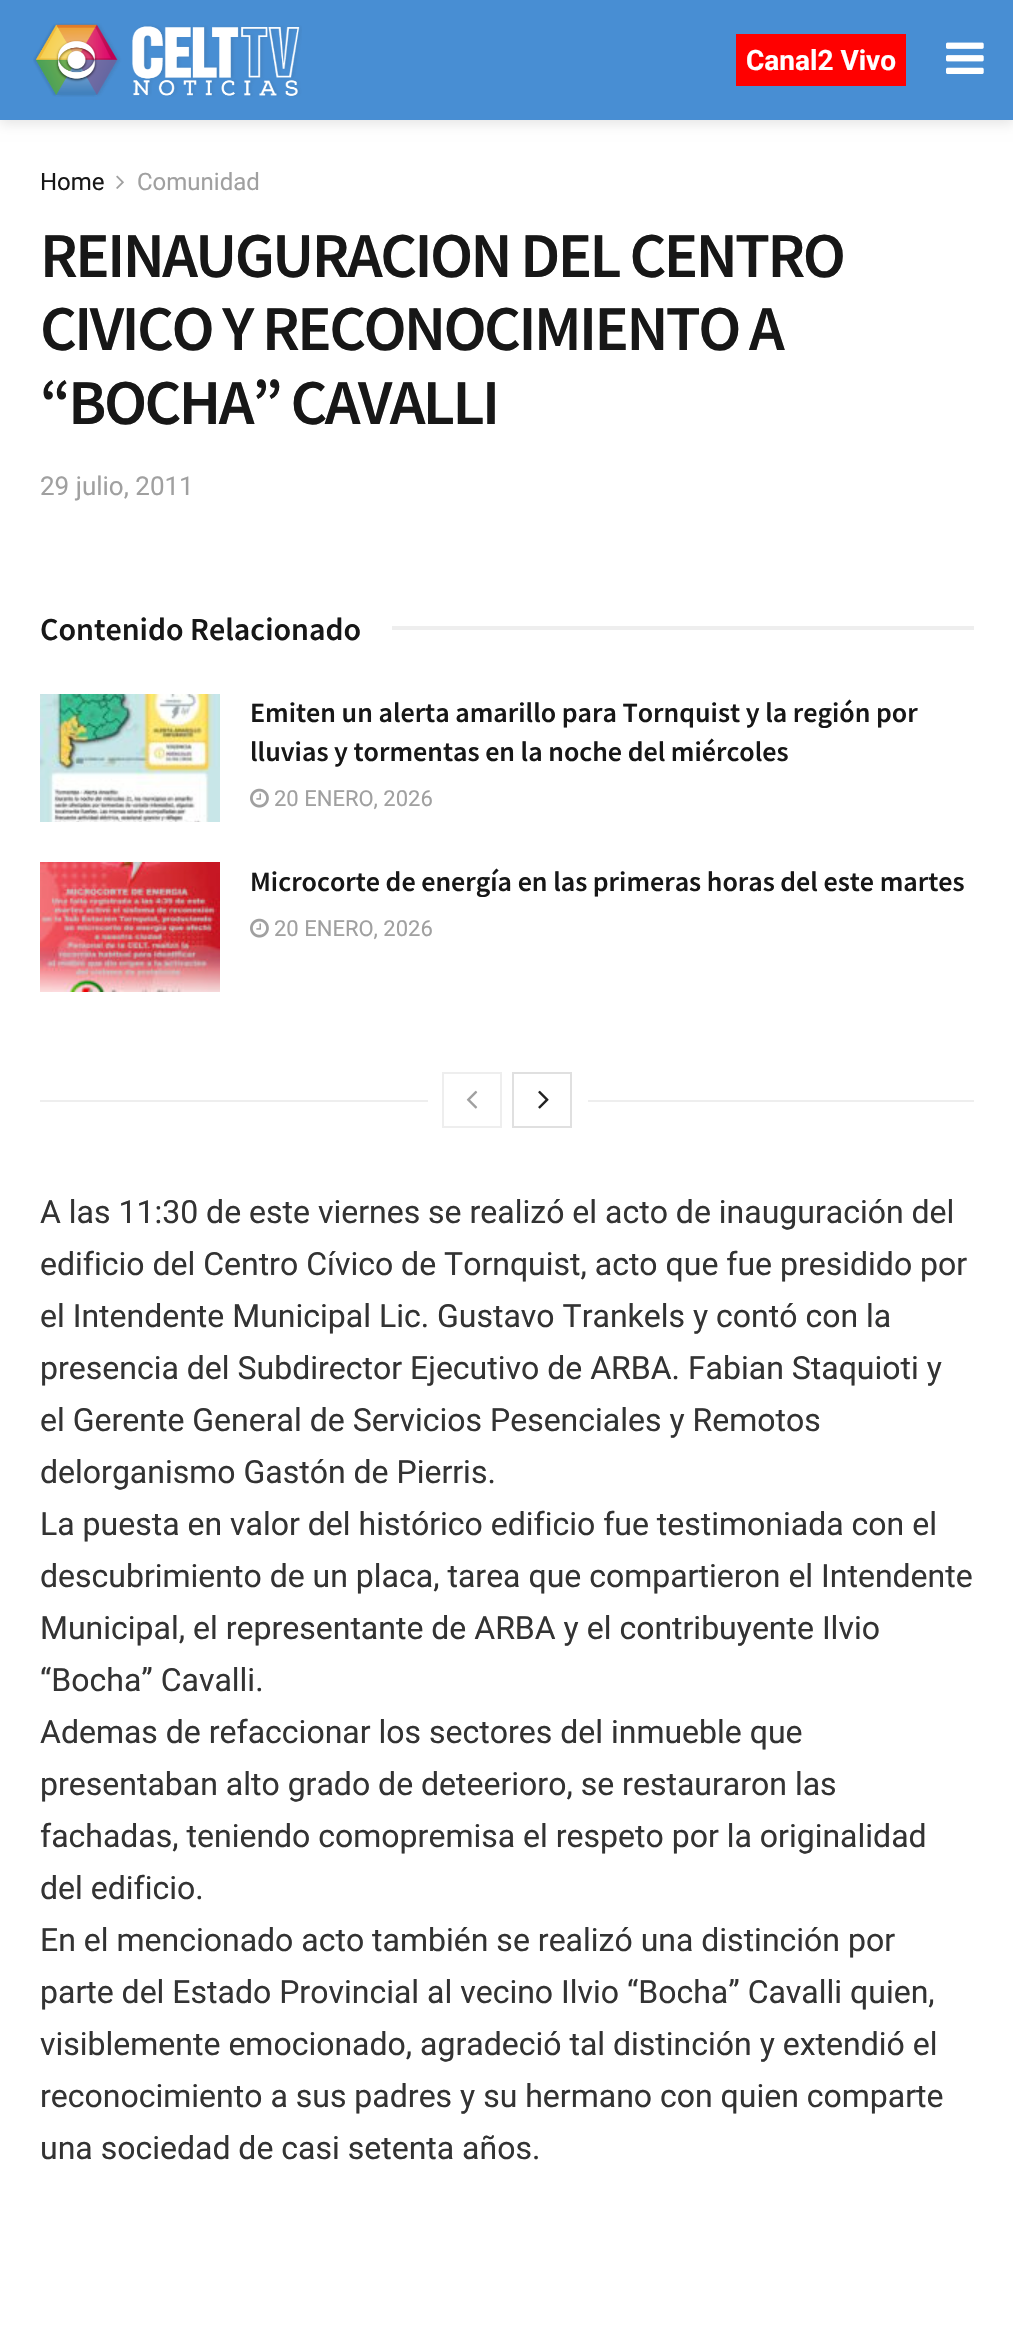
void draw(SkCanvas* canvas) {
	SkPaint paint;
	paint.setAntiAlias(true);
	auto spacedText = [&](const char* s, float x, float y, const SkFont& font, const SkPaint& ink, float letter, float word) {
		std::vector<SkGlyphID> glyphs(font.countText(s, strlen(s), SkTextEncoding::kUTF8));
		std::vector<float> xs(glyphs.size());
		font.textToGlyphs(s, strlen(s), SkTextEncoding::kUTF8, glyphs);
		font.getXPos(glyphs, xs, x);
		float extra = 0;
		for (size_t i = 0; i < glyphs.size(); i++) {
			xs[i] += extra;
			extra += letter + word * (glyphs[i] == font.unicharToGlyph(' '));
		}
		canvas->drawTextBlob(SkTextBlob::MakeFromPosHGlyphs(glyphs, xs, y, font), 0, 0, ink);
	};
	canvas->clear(0xffffffff);
	paint.setColor(0x1a000000);
	paint.setMaskFilter(SkMaskFilter::MakeBlur(kNormal_SkBlurStyle, 6));
	canvas->drawRect(SkRect::MakeXYWH(0, 4, 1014, 120), paint);
	paint.setMaskFilter(nullptr);
	paint.setColor(0xff488ed3);
	canvas->drawRect(SkRect::MakeXYWH(0, 0, 1013, 120), paint);
	canvas->drawImageRect(SkImages::DeferredFromEncodedData(SkData::MakeFromFileName("img1.png")), SkRect::MakeXYWH(33, 23, 269, 74), SkSamplingOptions());
	paint.setColor(0xffff0000);
	canvas->drawRect(SkRect::MakeXYWH(736, 34, 170, 52), paint);
	SkFont f1(fontMgr->matchFamilyStyle("Roboto", SkFontStyle::Bold()), 28);
	f1.setSubpixel(true);
	paint.setColor(0xffffffff);
	canvas->drawString("Canal2 Vivo", 746, 70, f1, paint);
	canvas->drawImageRect(SkImages::DeferredFromEncodedData(SkData::MakeFromFileName("img2.png")), SkRect::MakeXYWH(946, 42, 38, 32), SkSamplingOptions());
	SkFont f2(fontMgr->matchFamilyStyle("Roboto", SkFontStyle::Normal()), 24);
	f2.setSubpixel(true);
	paint.setColor(0xff171717);
	canvas->drawString("Home", 40, 190, f2, paint);
	canvas->drawImageRect(SkImages::DeferredFromEncodedData(SkData::MakeFromFileName("img3.png")), SkRect::MakeXYWH(116, 175, 8, 14), SkSamplingOptions());
	paint.setColor(0xffa0a0a0);
	canvas->drawString("Comunidad", 137, 190, f2, paint);
	SkFont f3(fontMgr->matchFamilyStyle("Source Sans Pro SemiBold", SkFontStyle(600, SkFontStyle::kNormal_Width, SkFontStyle::kUpright_Slant)), 64);
	f3.setSubpixel(true);
	paint.setColor(0xff171717);
	spacedText("REINAUGURACION DEL CENTRO", 40, 277, f3, paint, -2.55, 0);
	spacedText("CIVICO Y RECONOCIMIENTO A", 40, 350, f3, paint, -2.55, 0);
	spacedText("“BOCHA” CAVALLI", 40, 424, f3, paint, -2.55, 0);
	SkFont f4(fontMgr->matchFamilyStyle("Roboto", SkFontStyle::Normal()), 26);
	f4.setSubpixel(true);
	paint.setColor(0xffa0a0a0);
	canvas->drawString("29 julio, 2011", 40, 495, f4, paint);
	SkFont f5(fontMgr->matchFamilyStyle("Source Sans Pro SemiBold", SkFontStyle(600, SkFontStyle::kNormal_Width, SkFontStyle::kUpright_Slant)), 32);
	f5.setSubpixel(true);
	paint.setColor(0xff171717);
	canvas->drawString("Contenido Relacionado", 40, 640, f5, paint);
	paint.setColor(0xffeeeeee);
	canvas->drawRect(SkRect::MakeXYWH(392, 626, 582, 4), paint);
	canvas->drawImageRect(SkImages::DeferredFromEncodedData(SkData::MakeFromFileName("img4.png")), SkRect::MakeXYWH(40, 694, 180, 128), SkSamplingOptions());
	SkFont f6(fontMgr->matchFamilyStyle("Source Sans Pro SemiBold", SkFontStyle(600, SkFontStyle::kNormal_Width, SkFontStyle::kUpright_Slant)), 28);
	f6.setSubpixel(true);
	paint.setColor(0xff171717);
	canvas->drawString("Emiten un alerta amarillo para Tornquist y la región por", 250, 722, f6, paint);
	canvas->drawString("lluvias y tormentas en la noche del miércoles", 250, 761, f6, paint);
	canvas->drawImageRect(SkImages::DeferredFromEncodedData(SkData::MakeFromFileName("img5.png")), SkRect::MakeXYWH(250, 788, 19, 20), SkSamplingOptions());
	SkFont f7(fontMgr->matchFamilyStyle("Roboto", SkFontStyle::Normal()), 22);
	f7.setSubpixel(true);
	paint.setColor(0xffa0a0a0);
	canvas->drawString("20 ENERO, 2026", 274, 806, f7, paint);
	canvas->drawImageRect(SkImages::DeferredFromEncodedData(SkData::MakeFromFileName("img6.png")), SkRect::MakeXYWH(40, 862, 180, 130), SkSamplingOptions());
	paint.setColor(0xff171717);
	canvas->drawString("Microcorte de energía en las primeras horas del este martes", 250, 891, f6, paint);
	canvas->drawImageRect(SkImages::DeferredFromEncodedData(SkData::MakeFromFileName("img5.png")), SkRect::MakeXYWH(250, 918, 19, 20), SkSamplingOptions());
	paint.setColor(0xffa0a0a0);
	canvas->drawString("20 ENERO, 2026", 274, 936, f7, paint);
	paint.setColor(0xffeeeeee);
	canvas->drawRect(SkRect::MakeXYWH(40, 1100, 388, 2), paint);
	paint.setStroke(true);
	paint.setStrokeWidth(2);
	canvas->drawRect(SkRect::MakeXYWH(443, 1073, 58, 54), paint);
	canvas->drawImageRect(SkImages::DeferredFromEncodedData(SkData::MakeFromFileName("img7.png")), SkRect::MakeXYWH(466, 1090, 12, 19), SkSamplingOptions());
	paint.setColor(0xffe0e0e0);
	canvas->drawRect(SkRect::MakeXYWH(513, 1073, 58, 54), paint);
	canvas->drawImageRect(SkImages::DeferredFromEncodedData(SkData::MakeFromFileName("img8.png")), SkRect::MakeXYWH(538, 1090, 11, 19), SkSamplingOptions());
	paint.setStroke(false);
	paint.setColor(0xffeeeeee);
	canvas->drawRect(SkRect::MakeXYWH(588, 1100, 386, 2), paint);
	SkFont f8(fontMgr->matchFamilyStyle("Roboto", SkFontStyle::Normal()), 32);
	f8.setSubpixel(true);
	paint.setColor(0xff333333);
	canvas->drawString("A las 11:30 de este viernes se realizó el acto de inauguración del", 40, 1223, f8, paint);
	canvas->drawString("edificio del Centro Cívico de Tornquist, acto que fue presidido por", 40, 1275, f8, paint);
	canvas->drawString("el Intendente Municipal Lic. Gustavo Trankels y contó con la", 40, 1327, f8, paint);
	canvas->drawString("presencia del Subdirector Ejecutivo de ARBA. Fabian Staquioti y", 40, 1379, f8, paint);
	canvas->drawString("el Gerente General de Servicios Pesenciales y Remotos", 40, 1431, f8, paint);
	canvas->drawString("delorganismo Gastón de Pierris.", 40, 1483, f8, paint);
	canvas->drawString("La puesta en valor del histórico edificio fue testimoniada con el", 40, 1535, f8, paint);
	canvas->drawString("descubrimiento de un placa, tarea que compartieron el Intendente", 40, 1587, f8, paint);
	canvas->drawString("Municipal, el representante de ARBA y el contribuyente Ilvio", 40, 1639, f8, paint);
	canvas->drawString("“Bocha” Cavalli.", 40, 1691, f8, paint);
	canvas->drawString("Ademas de refaccionar los sectores del inmueble que", 40, 1743, f8, paint);
	canvas->drawString("presentaban alto grado de deteerioro, se restauraron las", 40, 1795, f8, paint);
	canvas->drawString("fachadas, teniendo comopremisa el respeto por la originalidad", 40, 1847, f8, paint);
	canvas->drawString("del edificio.", 40, 1899, f8, paint);
	canvas->drawString("En el mencionado acto también se realizó una distinción por", 40, 1951, f8, paint);
	canvas->drawString("parte del Estado Provincial al vecino Ilvio “Bocha” Cavalli quien,", 40, 2003, f8, paint);
	canvas->drawString("visiblemente emocionado, agradeció tal distinción y extendió el", 40, 2055, f8, paint);
	canvas->drawString("reconocimiento a sus padres y su hermano con quien comparte", 40, 2107, f8, paint);
	canvas->drawString("una sociedad de casi setenta años.", 40, 2159, f8, paint);
}
